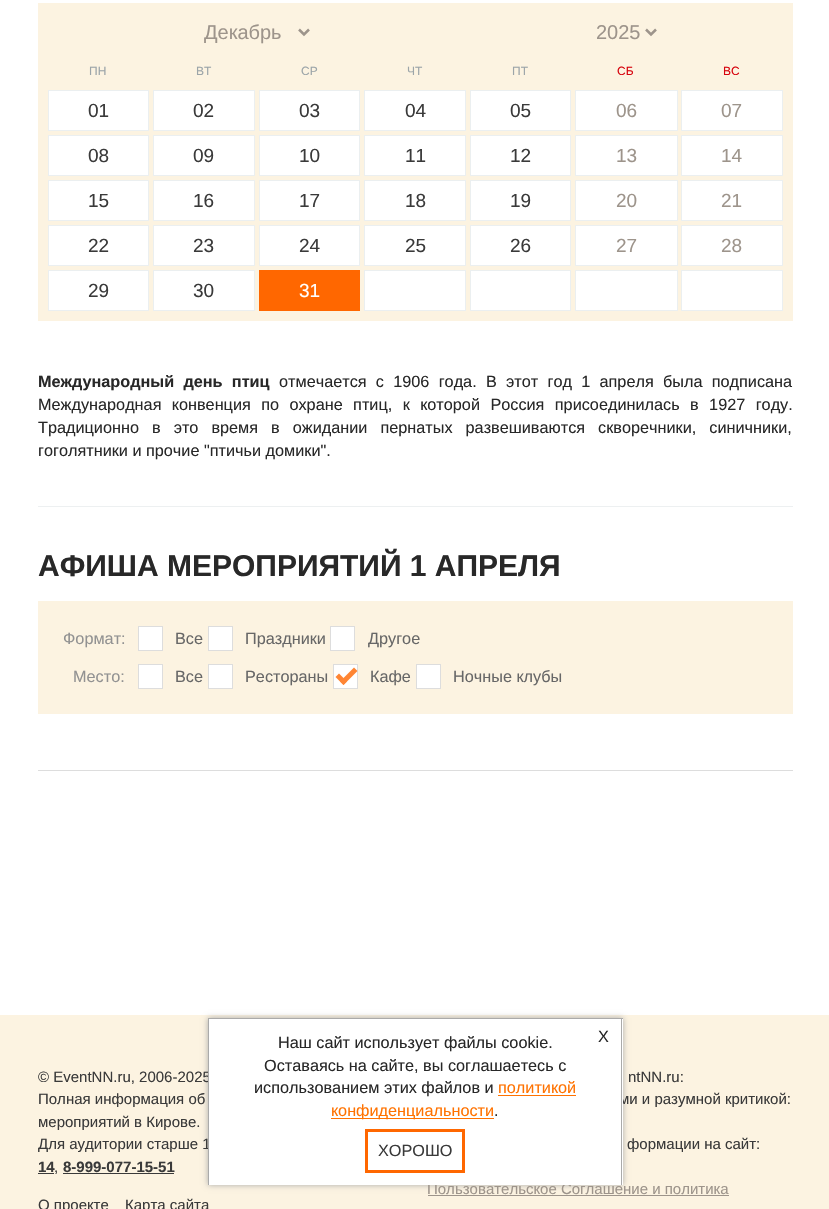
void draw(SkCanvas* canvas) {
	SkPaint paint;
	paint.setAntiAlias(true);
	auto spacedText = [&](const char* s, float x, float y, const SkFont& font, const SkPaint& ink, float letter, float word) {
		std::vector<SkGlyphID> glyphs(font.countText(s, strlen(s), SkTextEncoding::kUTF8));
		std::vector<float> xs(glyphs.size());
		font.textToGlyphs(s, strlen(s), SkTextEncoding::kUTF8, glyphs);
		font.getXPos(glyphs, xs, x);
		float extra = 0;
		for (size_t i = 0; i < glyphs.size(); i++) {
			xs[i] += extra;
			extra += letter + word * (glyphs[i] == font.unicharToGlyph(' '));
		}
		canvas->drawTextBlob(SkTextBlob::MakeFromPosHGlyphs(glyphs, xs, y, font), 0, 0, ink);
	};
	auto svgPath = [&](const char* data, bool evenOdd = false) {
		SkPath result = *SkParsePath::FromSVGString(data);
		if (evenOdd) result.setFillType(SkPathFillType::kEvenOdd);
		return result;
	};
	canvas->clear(0xffffffff);
	paint.setColor(0xfffcf3e1);
	canvas->drawRect(SkRect::MakeXYWH(38, 3, 755, 318), paint);
	paint.setStroke(true);
	paint.setStrokeWidth(2.5);
	paint.setColor(0xff9d948b);
	canvas->drawPath(svgPath("M299 29.5L304 34.5L309 29.5"), paint);
	SkFont f1(fontMgr->matchFamilyStyle("Liberation Sans", SkFontStyle::Normal()), 20);
	f1.setSubpixel(true);
	paint.setStroke(false);
	canvas->drawString("Декабрь", 204, 39, f1, paint);
	paint.setStroke(true);
	canvas->drawPath(svgPath("M646 29.5L651 34.5L656 29.5"), paint);
	paint.setStroke(false);
	canvas->drawString("2025", 596, 39, f1, paint);
	SkFont f2(fontMgr->matchFamilyStyle("Liberation Sans", SkFontStyle::Normal()), 12);
	f2.setSubpixel(true);
	paint.setColor(0xff9ca5a9);
	canvas->drawString("ПН", 89, 75, f2, paint);
	canvas->drawString("ВТ", 196, 75, f2, paint);
	canvas->drawString("СР", 301, 75, f2, paint);
	canvas->drawString("ЧТ", 407, 75, f2, paint);
	canvas->drawString("ПТ", 512, 75, f2, paint);
	paint.setColor(0xffd7030d);
	canvas->drawString("СБ", 617, 75, f2, paint);
	canvas->drawString("ВС", 723, 75, f2, paint);
	paint.setColor(0xffffffff);
	canvas->drawRect(SkRect::MakeXYWH(48.5, 90.5, 100, 40), paint);
	paint.setStroke(true);
	paint.setStrokeWidth(1);
	paint.setColor(0xffebeff0);
	canvas->drawRect(SkRect::MakeXYWH(48.5, 90.5, 100, 40), paint);
	SkFont f3(fontMgr->matchFamilyStyle("Liberation Sans", SkFontStyle::Normal()), 19);
	f3.setSubpixel(true);
	paint.setStroke(false);
	paint.setColor(0xff3a3a3a);
	canvas->drawString("01", 88, 117, f3, paint);
	paint.setColor(0xffffffff);
	canvas->drawRect(SkRect::MakeXYWH(153.5, 90.5, 101, 40), paint);
	paint.setStroke(true);
	paint.setColor(0xffebeff0);
	canvas->drawRect(SkRect::MakeXYWH(153.5, 90.5, 101, 40), paint);
	paint.setStroke(false);
	paint.setColor(0xff3a3a3a);
	canvas->drawString("02", 193, 117, f3, paint);
	paint.setColor(0xffffffff);
	canvas->drawRect(SkRect::MakeXYWH(259.5, 90.5, 100, 40), paint);
	paint.setStroke(true);
	paint.setColor(0xffebeff0);
	canvas->drawRect(SkRect::MakeXYWH(259.5, 90.5, 100, 40), paint);
	paint.setStroke(false);
	paint.setColor(0xff3a3a3a);
	canvas->drawString("03", 299, 117, f3, paint);
	paint.setColor(0xffffffff);
	canvas->drawRect(SkRect::MakeXYWH(364.5, 90.5, 101, 40), paint);
	paint.setStroke(true);
	paint.setColor(0xffebeff0);
	canvas->drawRect(SkRect::MakeXYWH(364.5, 90.5, 101, 40), paint);
	paint.setStroke(false);
	paint.setColor(0xff3a3a3a);
	canvas->drawString("04", 405, 117, f3, paint);
	paint.setColor(0xffffffff);
	canvas->drawRect(SkRect::MakeXYWH(470.5, 90.5, 100, 40), paint);
	paint.setStroke(true);
	paint.setColor(0xffebeff0);
	canvas->drawRect(SkRect::MakeXYWH(470.5, 90.5, 100, 40), paint);
	paint.setStroke(false);
	paint.setColor(0xff3a3a3a);
	canvas->drawString("05", 510, 117, f3, paint);
	paint.setColor(0xffffffff);
	canvas->drawRect(SkRect::MakeXYWH(575.5, 90.5, 102, 40), paint);
	paint.setStroke(true);
	paint.setColor(0xffebeff0);
	canvas->drawRect(SkRect::MakeXYWH(575.5, 90.5, 102, 40), paint);
	paint.setStroke(false);
	paint.setColor(0xff9d948b);
	canvas->drawString("06", 616, 117, f3, paint);
	paint.setColor(0xffffffff);
	canvas->drawRect(SkRect::MakeXYWH(681.5, 90.5, 101, 40), paint);
	paint.setStroke(true);
	paint.setColor(0xffebeff0);
	canvas->drawRect(SkRect::MakeXYWH(681.5, 90.5, 101, 40), paint);
	paint.setStroke(false);
	paint.setColor(0xff9d948b);
	canvas->drawString("07", 721, 117, f3, paint);
	paint.setColor(0xffffffff);
	canvas->drawRect(SkRect::MakeXYWH(48.5, 135.5, 100, 40), paint);
	paint.setStroke(true);
	paint.setColor(0xffebeff0);
	canvas->drawRect(SkRect::MakeXYWH(48.5, 135.5, 100, 40), paint);
	paint.setStroke(false);
	paint.setColor(0xff3a3a3a);
	canvas->drawString("08", 88, 162, f3, paint);
	paint.setColor(0xffffffff);
	canvas->drawRect(SkRect::MakeXYWH(153.5, 135.5, 101, 40), paint);
	paint.setStroke(true);
	paint.setColor(0xffebeff0);
	canvas->drawRect(SkRect::MakeXYWH(153.5, 135.5, 101, 40), paint);
	paint.setStroke(false);
	paint.setColor(0xff3a3a3a);
	canvas->drawString("09", 193, 162, f3, paint);
	paint.setColor(0xffffffff);
	canvas->drawRect(SkRect::MakeXYWH(259.5, 135.5, 100, 40), paint);
	paint.setStroke(true);
	paint.setColor(0xffebeff0);
	canvas->drawRect(SkRect::MakeXYWH(259.5, 135.5, 100, 40), paint);
	paint.setStroke(false);
	paint.setColor(0xff3a3a3a);
	canvas->drawString("10", 299, 162, f3, paint);
	paint.setColor(0xffffffff);
	canvas->drawRect(SkRect::MakeXYWH(364.5, 135.5, 101, 40), paint);
	paint.setStroke(true);
	paint.setColor(0xffebeff0);
	canvas->drawRect(SkRect::MakeXYWH(364.5, 135.5, 101, 40), paint);
	paint.setStroke(false);
	paint.setColor(0xff3a3a3a);
	canvas->drawString("11", 405, 162, f3, paint);
	paint.setColor(0xffffffff);
	canvas->drawRect(SkRect::MakeXYWH(470.5, 135.5, 100, 40), paint);
	paint.setStroke(true);
	paint.setColor(0xffebeff0);
	canvas->drawRect(SkRect::MakeXYWH(470.5, 135.5, 100, 40), paint);
	paint.setStroke(false);
	paint.setColor(0xff3a3a3a);
	canvas->drawString("12", 510, 162, f3, paint);
	paint.setColor(0xffffffff);
	canvas->drawRect(SkRect::MakeXYWH(575.5, 135.5, 102, 40), paint);
	paint.setStroke(true);
	paint.setColor(0xffebeff0);
	canvas->drawRect(SkRect::MakeXYWH(575.5, 135.5, 102, 40), paint);
	paint.setStroke(false);
	paint.setColor(0xff9d948b);
	canvas->drawString("13", 616, 162, f3, paint);
	paint.setColor(0xffffffff);
	canvas->drawRect(SkRect::MakeXYWH(681.5, 135.5, 101, 40), paint);
	paint.setStroke(true);
	paint.setColor(0xffebeff0);
	canvas->drawRect(SkRect::MakeXYWH(681.5, 135.5, 101, 40), paint);
	paint.setStroke(false);
	paint.setColor(0xff9d948b);
	canvas->drawString("14", 721, 162, f3, paint);
	paint.setColor(0xffffffff);
	canvas->drawRect(SkRect::MakeXYWH(48.5, 180.5, 100, 40), paint);
	paint.setStroke(true);
	paint.setColor(0xffebeff0);
	canvas->drawRect(SkRect::MakeXYWH(48.5, 180.5, 100, 40), paint);
	paint.setStroke(false);
	paint.setColor(0xff3a3a3a);
	canvas->drawString("15", 88, 207, f3, paint);
	paint.setColor(0xffffffff);
	canvas->drawRect(SkRect::MakeXYWH(153.5, 180.5, 101, 40), paint);
	paint.setStroke(true);
	paint.setColor(0xffebeff0);
	canvas->drawRect(SkRect::MakeXYWH(153.5, 180.5, 101, 40), paint);
	paint.setStroke(false);
	paint.setColor(0xff3a3a3a);
	canvas->drawString("16", 193, 207, f3, paint);
	paint.setColor(0xffffffff);
	canvas->drawRect(SkRect::MakeXYWH(259.5, 180.5, 100, 40), paint);
	paint.setStroke(true);
	paint.setColor(0xffebeff0);
	canvas->drawRect(SkRect::MakeXYWH(259.5, 180.5, 100, 40), paint);
	paint.setStroke(false);
	paint.setColor(0xff3a3a3a);
	canvas->drawString("17", 299, 207, f3, paint);
	paint.setColor(0xffffffff);
	canvas->drawRect(SkRect::MakeXYWH(364.5, 180.5, 101, 40), paint);
	paint.setStroke(true);
	paint.setColor(0xffebeff0);
	canvas->drawRect(SkRect::MakeXYWH(364.5, 180.5, 101, 40), paint);
	paint.setStroke(false);
	paint.setColor(0xff3a3a3a);
	canvas->drawString("18", 405, 207, f3, paint);
	paint.setColor(0xffffffff);
	canvas->drawRect(SkRect::MakeXYWH(470.5, 180.5, 100, 40), paint);
	paint.setStroke(true);
	paint.setColor(0xffebeff0);
	canvas->drawRect(SkRect::MakeXYWH(470.5, 180.5, 100, 40), paint);
	paint.setStroke(false);
	paint.setColor(0xff3a3a3a);
	canvas->drawString("19", 510, 207, f3, paint);
	paint.setColor(0xffffffff);
	canvas->drawRect(SkRect::MakeXYWH(575.5, 180.5, 102, 40), paint);
	paint.setStroke(true);
	paint.setColor(0xffebeff0);
	canvas->drawRect(SkRect::MakeXYWH(575.5, 180.5, 102, 40), paint);
	paint.setStroke(false);
	paint.setColor(0xff9d948b);
	canvas->drawString("20", 616, 207, f3, paint);
	paint.setColor(0xffffffff);
	canvas->drawRect(SkRect::MakeXYWH(681.5, 180.5, 101, 40), paint);
	paint.setStroke(true);
	paint.setColor(0xffebeff0);
	canvas->drawRect(SkRect::MakeXYWH(681.5, 180.5, 101, 40), paint);
	paint.setStroke(false);
	paint.setColor(0xff9d948b);
	canvas->drawString("21", 721, 207, f3, paint);
	paint.setColor(0xffffffff);
	canvas->drawRect(SkRect::MakeXYWH(48.5, 225.5, 100, 40), paint);
	paint.setStroke(true);
	paint.setColor(0xffebeff0);
	canvas->drawRect(SkRect::MakeXYWH(48.5, 225.5, 100, 40), paint);
	paint.setStroke(false);
	paint.setColor(0xff3a3a3a);
	canvas->drawString("22", 88, 252, f3, paint);
	paint.setColor(0xffffffff);
	canvas->drawRect(SkRect::MakeXYWH(153.5, 225.5, 101, 40), paint);
	paint.setStroke(true);
	paint.setColor(0xffebeff0);
	canvas->drawRect(SkRect::MakeXYWH(153.5, 225.5, 101, 40), paint);
	paint.setStroke(false);
	paint.setColor(0xff3a3a3a);
	canvas->drawString("23", 193, 252, f3, paint);
	paint.setColor(0xffffffff);
	canvas->drawRect(SkRect::MakeXYWH(259.5, 225.5, 100, 40), paint);
	paint.setStroke(true);
	paint.setColor(0xffebeff0);
	canvas->drawRect(SkRect::MakeXYWH(259.5, 225.5, 100, 40), paint);
	paint.setStroke(false);
	paint.setColor(0xff3a3a3a);
	canvas->drawString("24", 299, 252, f3, paint);
	paint.setColor(0xffffffff);
	canvas->drawRect(SkRect::MakeXYWH(364.5, 225.5, 101, 40), paint);
	paint.setStroke(true);
	paint.setColor(0xffebeff0);
	canvas->drawRect(SkRect::MakeXYWH(364.5, 225.5, 101, 40), paint);
	paint.setStroke(false);
	paint.setColor(0xff3a3a3a);
	canvas->drawString("25", 405, 252, f3, paint);
	paint.setColor(0xffffffff);
	canvas->drawRect(SkRect::MakeXYWH(470.5, 225.5, 100, 40), paint);
	paint.setStroke(true);
	paint.setColor(0xffebeff0);
	canvas->drawRect(SkRect::MakeXYWH(470.5, 225.5, 100, 40), paint);
	paint.setStroke(false);
	paint.setColor(0xff3a3a3a);
	canvas->drawString("26", 510, 252, f3, paint);
	paint.setColor(0xffffffff);
	canvas->drawRect(SkRect::MakeXYWH(575.5, 225.5, 102, 40), paint);
	paint.setStroke(true);
	paint.setColor(0xffebeff0);
	canvas->drawRect(SkRect::MakeXYWH(575.5, 225.5, 102, 40), paint);
	paint.setStroke(false);
	paint.setColor(0xff9d948b);
	canvas->drawString("27", 616, 252, f3, paint);
	paint.setColor(0xffffffff);
	canvas->drawRect(SkRect::MakeXYWH(681.5, 225.5, 101, 40), paint);
	paint.setStroke(true);
	paint.setColor(0xffebeff0);
	canvas->drawRect(SkRect::MakeXYWH(681.5, 225.5, 101, 40), paint);
	paint.setStroke(false);
	paint.setColor(0xff9d948b);
	canvas->drawString("28", 721, 252, f3, paint);
	paint.setColor(0xffffffff);
	canvas->drawRect(SkRect::MakeXYWH(48.5, 270.5, 100, 40), paint);
	paint.setStroke(true);
	paint.setColor(0xffebeff0);
	canvas->drawRect(SkRect::MakeXYWH(48.5, 270.5, 100, 40), paint);
	paint.setStroke(false);
	paint.setColor(0xff3a3a3a);
	canvas->drawString("29", 88, 297, f3, paint);
	paint.setColor(0xffffffff);
	canvas->drawRect(SkRect::MakeXYWH(153.5, 270.5, 101, 40), paint);
	paint.setStroke(true);
	paint.setColor(0xffebeff0);
	canvas->drawRect(SkRect::MakeXYWH(153.5, 270.5, 101, 40), paint);
	paint.setStroke(false);
	paint.setColor(0xff3a3a3a);
	canvas->drawString("30", 193, 297, f3, paint);
	paint.setColor(0xffff6700);
	canvas->drawRect(SkRect::MakeXYWH(259, 270, 101, 41), paint);
	paint.setColor(0xffffffff);
	canvas->drawString("31", 299, 297, f3, paint);
	canvas->drawRect(SkRect::MakeXYWH(364.5, 270.5, 101, 40), paint);
	paint.setStroke(true);
	paint.setColor(0xffebeff0);
	canvas->drawRect(SkRect::MakeXYWH(364.5, 270.5, 101, 40), paint);
	paint.setStroke(false);
	paint.setColor(0xffffffff);
	canvas->drawRect(SkRect::MakeXYWH(470.5, 270.5, 100, 40), paint);
	paint.setStroke(true);
	paint.setColor(0xffebeff0);
	canvas->drawRect(SkRect::MakeXYWH(470.5, 270.5, 100, 40), paint);
	paint.setStroke(false);
	paint.setColor(0xffffffff);
	canvas->drawRect(SkRect::MakeXYWH(575.5, 270.5, 102, 40), paint);
	paint.setStroke(true);
	paint.setColor(0xffebeff0);
	canvas->drawRect(SkRect::MakeXYWH(575.5, 270.5, 102, 40), paint);
	paint.setStroke(false);
	paint.setColor(0xffffffff);
	canvas->drawRect(SkRect::MakeXYWH(681.5, 270.5, 101, 40), paint);
	paint.setStroke(true);
	paint.setColor(0xffebeff0);
	canvas->drawRect(SkRect::MakeXYWH(681.5, 270.5, 101, 40), paint);
	paint.setStroke(false);
	paint.setColor(0xffedf0f1);
	canvas->drawRect(SkRect::MakeXYWH(38, 506, 755, 1), paint);
	SkFont f4(fontMgr->matchFamilyStyle("Liberation Sans", SkFontStyle::Bold()), 16.25);
	f4.setSubpixel(true);
	paint.setColor(0xff282828);
	spacedText("Международный день птиц", 38, 387, f4, paint, 0, 4.75);
	SkFont f5(fontMgr->matchFamilyStyle("Liberation Sans", SkFontStyle::Normal()), 16.25);
	f5.setSubpixel(true);
	spacedText("отмечается с 1906 года. В этот год 1 апреля была подписана", 279, 387, f5, paint, 0, 4.75);
	spacedText("Международная конвенция по охране птиц, к которой Россия присоединилась в 1927 году.", 38, 410, f5, paint, 0, 5.9);
	spacedText("Традиционно в это время в ожидании пернатых развешиваются скворечники, синичники,", 38, 433, f5, paint, 0, 8.5);
	canvas->drawString("гоголятники и прочие \"птичьи домики\".", 38, 456, f5, paint);
	paint.setColor(0xffdddddd);
	canvas->drawRect(SkRect::MakeXYWH(38, 770, 755, 1), paint);
	SkFont f6(fontMgr->matchFamilyStyle("Liberation Sans", SkFontStyle::Bold()), 30);
	f6.setSubpixel(true);
	paint.setColor(0xff282828);
	canvas->drawString("АФИША МЕРОПРИЯТИЙ 1 АПРЕЛЯ", 38, 576, f6, paint);
	paint.setColor(0xfffcf3e1);
	canvas->drawRect(SkRect::MakeXYWH(38, 601, 755, 113), paint);
	paint.setColor(0xff929292);
	canvas->drawString("Формат:", 63, 644, f5, paint);
	paint.setColor(0xffffffff);
	canvas->drawRect(SkRect::MakeXYWH(138.5, 626.5, 24, 24), paint);
	paint.setStroke(true);
	paint.setColor(0xffdddddd);
	canvas->drawRect(SkRect::MakeXYWH(138.5, 626.5, 24, 24), paint);
	paint.setStroke(false);
	paint.setColor(0xff676767);
	canvas->drawString("Все", 175, 644, f5, paint);
	paint.setColor(0xffffffff);
	canvas->drawRect(SkRect::MakeXYWH(208.5, 626.5, 24, 24), paint);
	paint.setStroke(true);
	paint.setColor(0xffdddddd);
	canvas->drawRect(SkRect::MakeXYWH(208.5, 626.5, 24, 24), paint);
	paint.setStroke(false);
	paint.setColor(0xff676767);
	canvas->drawString("Праздники", 245, 644, f5, paint);
	paint.setColor(0xffffffff);
	canvas->drawRect(SkRect::MakeXYWH(330.5, 626.5, 24, 24), paint);
	paint.setStroke(true);
	paint.setColor(0xffdddddd);
	canvas->drawRect(SkRect::MakeXYWH(330.5, 626.5, 24, 24), paint);
	paint.setStroke(false);
	paint.setColor(0xff676767);
	canvas->drawString("Другое", 368, 644, f5, paint);
	paint.setColor(0xff929292);
	canvas->drawString("Место:", 73, 682, f5, paint);
	paint.setColor(0xffffffff);
	canvas->drawRect(SkRect::MakeXYWH(138.5, 664.5, 24, 24), paint);
	paint.setStroke(true);
	paint.setColor(0xffdddddd);
	canvas->drawRect(SkRect::MakeXYWH(138.5, 664.5, 24, 24), paint);
	paint.setStroke(false);
	paint.setColor(0xff676767);
	canvas->drawString("Все", 175, 682, f5, paint);
	paint.setColor(0xffffffff);
	canvas->drawRect(SkRect::MakeXYWH(208.5, 664.5, 24, 24), paint);
	paint.setStroke(true);
	paint.setColor(0xffdddddd);
	canvas->drawRect(SkRect::MakeXYWH(208.5, 664.5, 24, 24), paint);
	paint.setStroke(false);
	paint.setColor(0xff676767);
	canvas->drawString("Рестораны", 245, 682, f5, paint);
	paint.setColor(0xffffffff);
	canvas->drawRect(SkRect::MakeXYWH(333.5, 664.5, 24, 24), paint);
	paint.setStroke(true);
	paint.setColor(0xffdddddd);
	canvas->drawRect(SkRect::MakeXYWH(333.5, 664.5, 24, 24), paint);
	paint.setStroke(false);
	paint.setColor(0xffff8533);
	canvas->drawPath(svgPath("M340 681.5L354 667.5L357.5 671L343.5 685Z"), paint);
	canvas->drawPath(svgPath("M335.5 677L339 673.5L347 681.5L343.5 685Z"), paint);
	paint.setColor(0xff676767);
	canvas->drawString("Кафе", 370, 682, f5, paint);
	paint.setColor(0xffffffff);
	canvas->drawRect(SkRect::MakeXYWH(416.5, 664.5, 24, 24), paint);
	paint.setStroke(true);
	paint.setColor(0xffdddddd);
	canvas->drawRect(SkRect::MakeXYWH(416.5, 664.5, 24, 24), paint);
	paint.setStroke(false);
	paint.setColor(0xff676767);
	canvas->drawString("Ночные клубы", 453, 682, f5, paint);
	paint.setColor(0xfffcf3e1);
	canvas->drawRect(SkRect::MakeXYWH(0, 1015, 829, 194), paint);
	paint.setColor(0xffaaaaaa);
	paint.setMaskFilter(SkMaskFilter::MakeBlur(kNormal_SkBlurStyle, 3));
	canvas->drawRect(SkRect::MakeXYWH(208, 1018, 415, 167), paint);
	paint.setMaskFilter(nullptr);
	SkFont f7(fontMgr->matchFamilyStyle("Liberation Sans", SkFontStyle::Normal()), 15);
	f7.setSubpixel(true);
	paint.setColor(0xff3a3a3a);
	canvas->drawString("© EventNN.ru, 2006-2025", 38, 1082, f7, paint);
	canvas->drawString("Для аудитории старше 1", 38, 1149, f7, paint);
	canvas->drawString("ми и разумной критикой:", 619, 1104, f7, paint);
	paint.setColor(0xff9d948b);
	canvas->drawString("Пользовательское Соглашение и политика", 427, 1194, f7, paint);
	paint.setColor(0xffffffff);
	canvas->drawRect(SkRect::MakeXYWH(209, 1019, 414, 166), paint);
	paint.setColor(0xffaaaaaa);
	canvas->drawRect(SkRect::MakeXYWH(208, 1018, 415, 1), paint);
	canvas->drawRect(SkRect::MakeXYWH(621, 1018, 1, 167), paint);
	canvas->drawRect(SkRect::MakeXYWH(208, 1018, 1, 167), paint);
	paint.setColor(0xff282828);
	canvas->drawString("Наш сайт использует файлы cookie.", 278, 1048, f5, paint);
	canvas->drawString("Оставаясь на сайте, вы соглашаетесь с", 264, 1071, f5, paint);
	canvas->drawString("использованием этих файлов и", 254, 1093, f5, paint);
	paint.setColor(0xffff7200);
	canvas->drawString("политикой", 498, 1093, f5, paint);
	canvas->drawRect(SkRect::MakeXYWH(498, 1095, 78, 1), paint);
	canvas->drawRect(SkRect::MakeXYWH(331, 1118, 163, 1), paint);
	canvas->drawString("конфиденциальности", 331, 1116, f5, paint);
	paint.setColor(0xff282828);
	canvas->drawString(".", 494, 1116, f5, paint);
	canvas->drawString("X", 598, 1042, f5, paint);
	paint.setStroke(true);
	paint.setStrokeWidth(3);
	paint.setColor(0xffff6700);
	canvas->drawRect(SkRect::MakeXYWH(366.5, 1130.5, 97, 41), paint);
	paint.setStroke(false);
	paint.setColor(0xff3a3a3a);
	canvas->drawString("ХОРОШО", 378, 1156, f5, paint);
	canvas->drawString("Полная информация об", 38, 1104, f7, paint);
	canvas->drawString("мероприятий в Кирове.", 38, 1127, f7, paint);
	SkFont f8(fontMgr->matchFamilyStyle("Liberation Sans", SkFontStyle::Bold()), 15);
	f8.setSubpixel(true);
	canvas->drawString("14", 38, 1172, f8, paint);
	canvas->drawRect(SkRect::MakeXYWH(38, 1173, 16, 1), paint);
	canvas->drawString(",", 54, 1172, f7, paint);
	canvas->drawString("8-999-077-15-51", 63, 1172, f8, paint);
	canvas->drawRect(SkRect::MakeXYWH(63, 1173, 111, 1), paint);
	canvas->drawString("О проекте", 38, 1210, f7, paint);
	canvas->drawString("Карта сайта", 125, 1210, f7, paint);
	canvas->drawString("ntNN.ru:", 628, 1082, f7, paint);
	canvas->drawString("формации на сайт:", 627, 1149, f7, paint);
	paint.setColor(0xff9d948b);
	canvas->drawRect(SkRect::MakeXYWH(428, 1195, 301, 1), paint);
}
